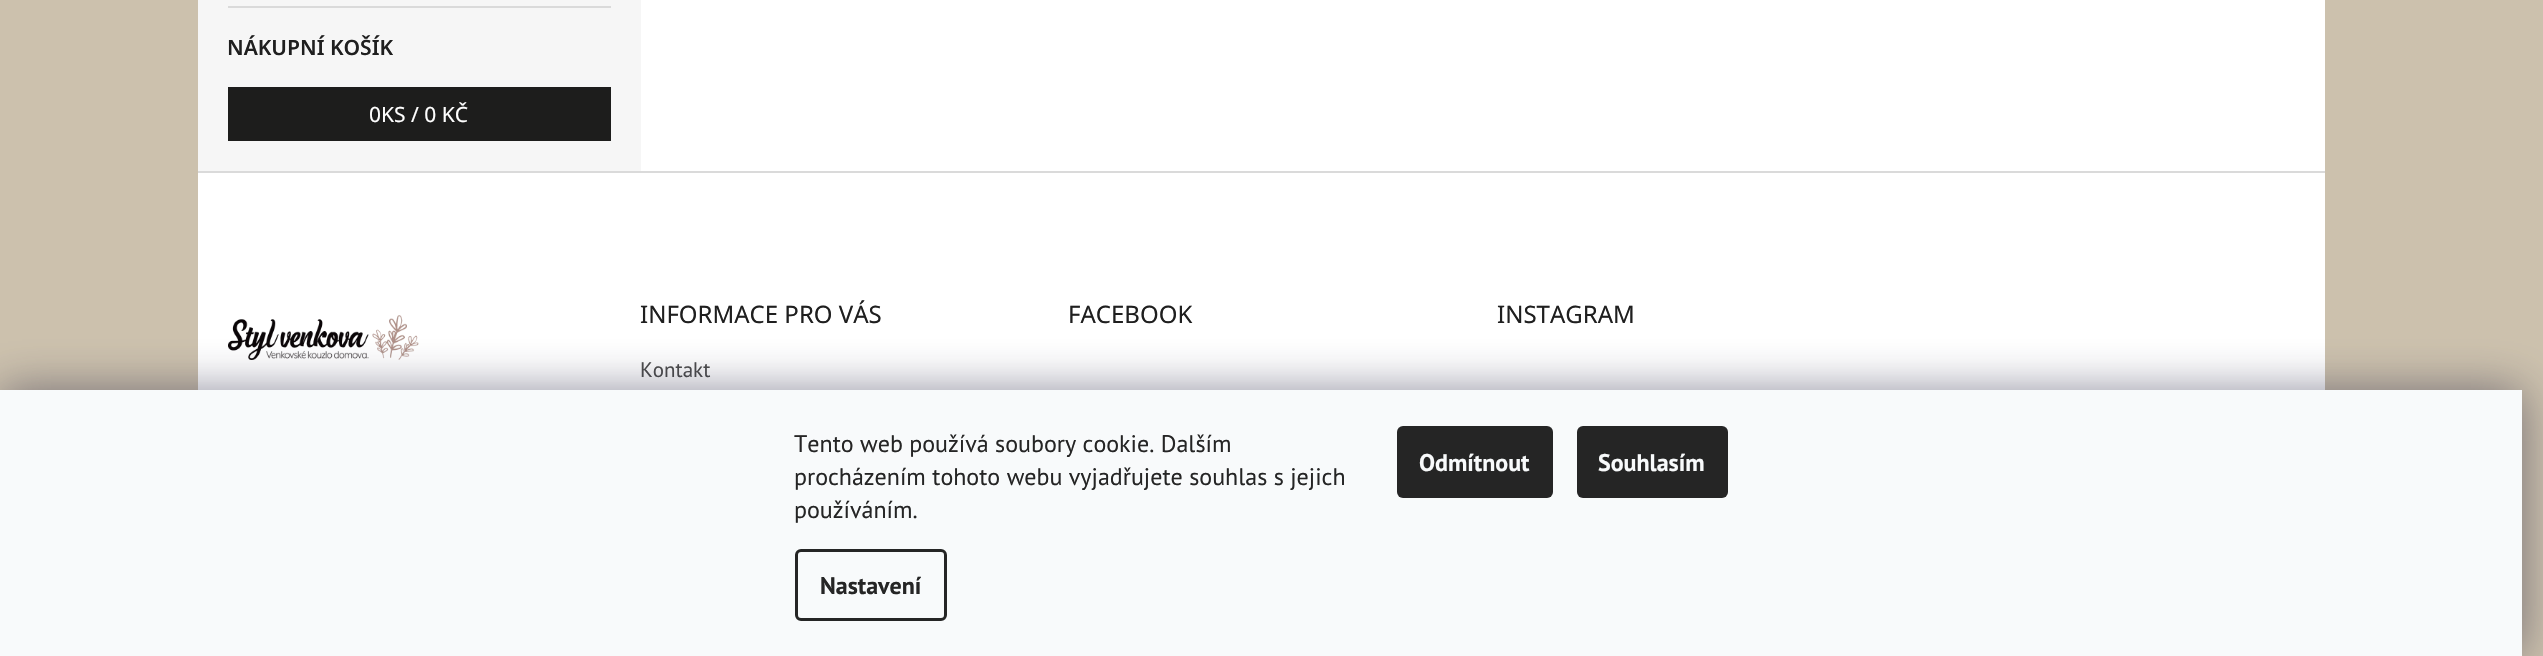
void draw(SkCanvas* canvas) {
	SkPaint paint;
	paint.setAntiAlias(true);
	canvas->clear(0xffccc1ad);
	paint.setColor(0xffffffff);
	canvas->drawRect(SkRect::MakeXYWH(641, 0, 1684, 171), paint);
	paint.setColor(0xfff6f6f6);
	canvas->drawRect(SkRect::MakeXYWH(198, 0, 443, 171), paint);
	paint.setColor(0xffdadada);
	canvas->drawRect(SkRect::MakeXYWH(228, 6, 383, 2), paint);
	SkFont f1(fontMgr->matchFamilyStyle("Noto Sans", SkFontStyle(600, SkFontStyle::kNormal_Width, SkFontStyle::kUpright_Slant)), 21);
	f1.setSubpixel(true);
	paint.setColor(0xff1f1f1f);
	canvas->drawString("NÁKUPNÍ KOŠÍK", 227, 55, f1, paint);
	paint.setColor(0xff1d1d1c);
	canvas->drawRect(SkRect::MakeXYWH(228, 87, 383, 54), paint);
	SkFont f2(fontMgr->matchFamilyStyle("Noto Sans", SkFontStyle::Normal()), 21);
	f2.setSubpixel(true);
	paint.setColor(0xffffffff);
	canvas->drawString("0KS / 0 KČ", 369, 122, f2, paint);
	canvas->drawRect(SkRect::MakeXYWH(198, 173, 2127, 217), paint);
	canvas->drawImageRect(SkImages::DeferredFromEncodedData(SkData::MakeFromFileName("img1.png")), SkRect::MakeXYWH(228, 315, 191, 45), SkSamplingOptions());
	paint.setColor(0xffdadada);
	canvas->drawRect(SkRect::MakeXYWH(198, 171, 2127, 2), paint);
	SkFont f3(fontMgr->matchFamilyStyle("Noto Sans", SkFontStyle::Normal()), 24);
	f3.setSubpixel(true);
	paint.setColor(0xff1f1f1f);
	canvas->drawString("INFORMACE PRO VÁS", 640, 323, f3, paint);
	SkFont f4(fontMgr->matchFamilyStyle("PT Sans", SkFontStyle::Normal()), 21);
	f4.setSubpixel(true);
	paint.setColor(0xff4d4d4d);
	canvas->drawString("Kontakt", 640, 377, f4, paint);
	paint.setColor(0xff1f1f1f);
	canvas->drawString("FACEBOOK", 1068, 323, f3, paint);
	canvas->drawString("INSTAGRAM", 1497, 323, f3, paint);
	paint.setColor(0x801b1939);
	paint.setMaskFilter(SkMaskFilter::MakeBlur(kNormal_SkBlurStyle, 22.5));
	canvas->drawRect(SkRect::MakeXYWH(0, 390, 2522, 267), paint);
	paint.setMaskFilter(nullptr);
	paint.setColor(0xfff8fafb);
	canvas->drawRect(SkRect::MakeXYWH(0, 390, 2522, 266), paint);
	SkFont f5(fontMgr->matchFamilyStyle("PT Sans", SkFontStyle::Normal()), 24);
	f5.setSubpixel(true);
	paint.setColor(0xff252525);
	canvas->drawString("Tento web používá soubory cookie. Dalším", 794, 452, f5, paint);
	canvas->drawString("procházením tohoto webu vyjadřujete souhlas s jejich", 794, 485, f5, paint);
	canvas->drawString("používáním.", 794, 518, f5, paint);
	paint.setStroke(true);
	paint.setStrokeWidth(3);
	canvas->drawRoundRect(SkRect::MakeXYWH(796.5, 550.5, 149, 69), 4.5, 4.5, paint);
	SkFont f6(fontMgr->matchFamilyStyle("PT Sans", SkFontStyle::Bold()), 24);
	f6.setSubpixel(true);
	paint.setStroke(false);
	canvas->drawString("Nastavení", 820, 594, f6, paint);
	canvas->drawRoundRect(SkRect::MakeXYWH(1397, 426, 156, 72), 6, 6, paint);
	paint.setColor(0xfff8fafb);
	canvas->drawString("Odmítnout", 1419, 471, f6, paint);
	paint.setColor(0xff252525);
	canvas->drawRoundRect(SkRect::MakeXYWH(1577, 426, 151, 72), 6, 6, paint);
	paint.setColor(0xfff8fafb);
	canvas->drawString("Souhlasím", 1598, 471, f6, paint);
}
